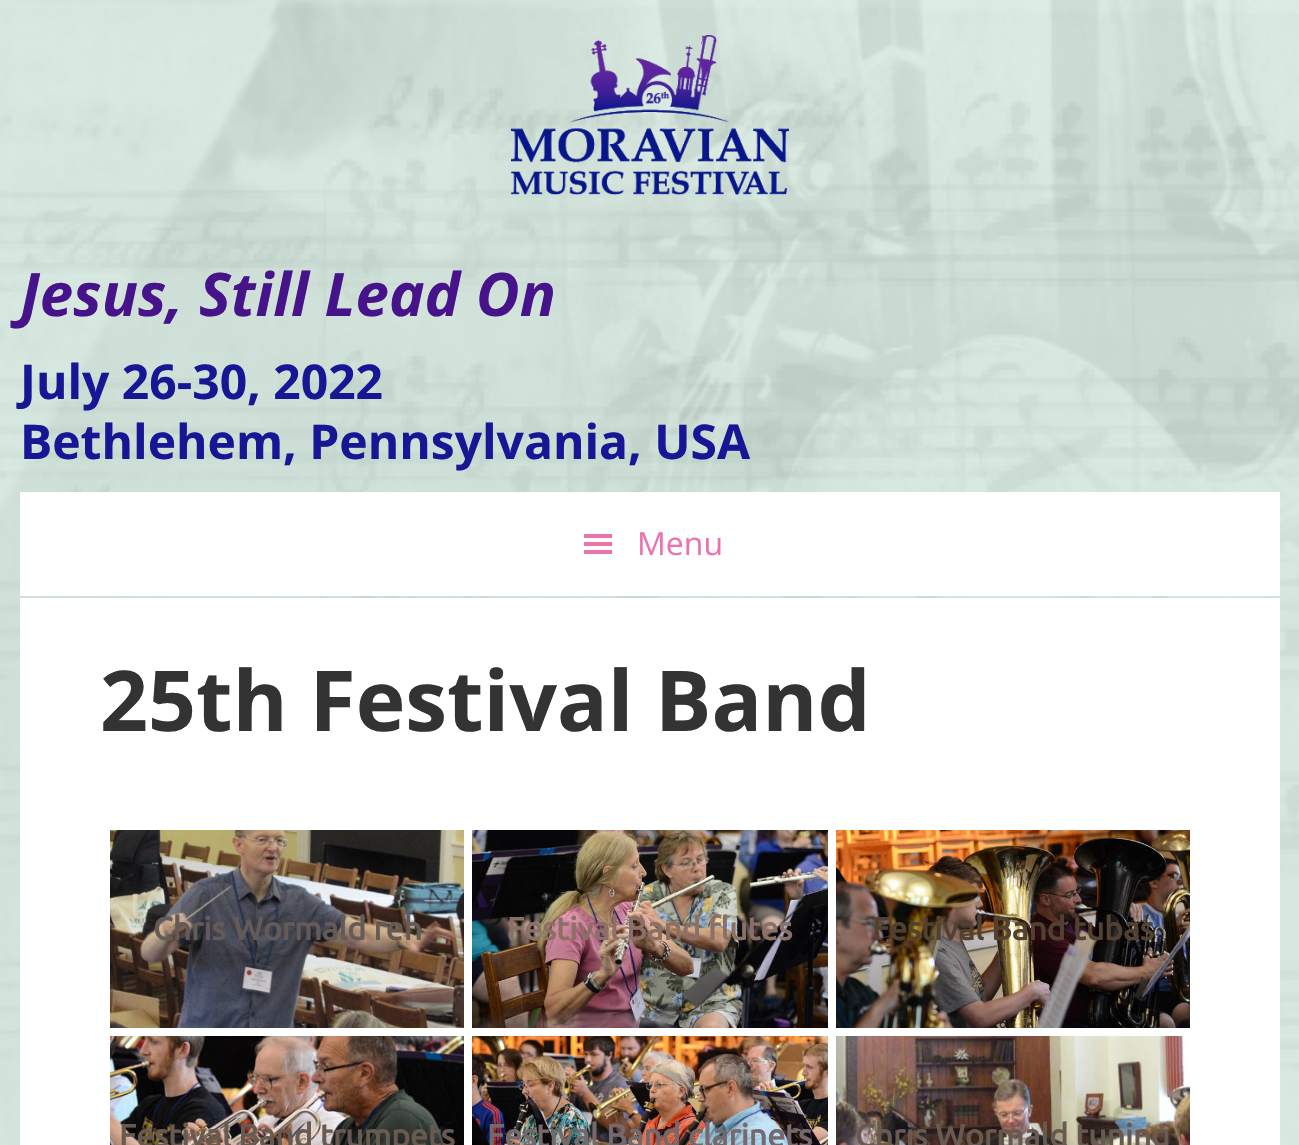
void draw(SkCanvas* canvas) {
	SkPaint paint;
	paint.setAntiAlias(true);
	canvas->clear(0xffffffff);
	canvas->drawImageRect(SkImages::DeferredFromEncodedData(SkData::MakeFromFileName("img1.png")), SkRect::MakeXYWH(0, 0, 1299, 1145), SkSamplingOptions());
	canvas->drawImageRect(SkImages::DeferredFromEncodedData(SkData::MakeFromFileName("img2.png")), SkRect::MakeXYWH(511, 35, 278, 160), SkSamplingOptions());
	SkFont f1(fontMgr->matchFamilyStyle("Open Sans", SkFontStyle::BoldItalic()), 60);
	f1.setSubpixel(true);
	paint.setColor(0xff47138a);
	canvas->drawString("Jesus, Still Lead On", 20, 316, f1, paint);
	SkFont f2(fontMgr->matchFamilyStyle("Open Sans", SkFontStyle::Bold()), 48);
	f2.setSubpixel(true);
	paint.setColor(0xff171796);
	canvas->drawString("July 26-30, 2022", 20, 399, f2, paint);
	canvas->drawString("Bethlehem, Pennsylvania, USA", 20, 459, f2, paint);
	paint.setColor(0xffffffff);
	canvas->drawRect(SkRect::MakeXYWH(20, 492, 1260, 104), paint);
	canvas->drawImageRect(SkImages::DeferredFromEncodedData(SkData::MakeFromFileName("img3.png")), SkRect::MakeXYWH(584, 534, 28, 20), SkSamplingOptions());
	SkFont f3(fontMgr->matchFamilyStyle("Open Sans", SkFontStyle::Normal()), 32);
	f3.setSubpixel(true);
	paint.setColor(0xffeb72ae);
	canvas->drawString("Menu", 637, 555, f3, paint);
	paint.setColor(0xffffffff);
	canvas->drawRect(SkRect::MakeXYWH(20, 598, 1260, 547), paint);
	SkFont f4(fontMgr->matchFamilyStyle("Open Sans", SkFontStyle::Bold()), 84);
	f4.setSubpixel(true);
	paint.setColor(0xff333333);
	canvas->drawString("25th Festival Band", 100, 731, f4, paint);
	canvas->drawImageRect(SkImages::DeferredFromEncodedData(SkData::MakeFromFileName("img4.png")), SkRect::MakeXYWH(110, 830, 354, 198), SkSamplingOptions());
	SkFont f5(fontMgr->matchFamilyStyle("Ubuntu", SkFontStyle::Bold()), 32);
	f5.setSubpixel(true);
	paint.setColor(0xff645a57);
	canvas->drawString("Chris Wormald reh", 153, 940, f5, paint);
	canvas->drawImageRect(SkImages::DeferredFromEncodedData(SkData::MakeFromFileName("img5.png")), SkRect::MakeXYWH(472, 830, 356, 198), SkSamplingOptions());
	paint.setColor(0xff8c7068);
	canvas->drawString("Festival Band flutes", 507, 940, f5, paint);
	canvas->drawImageRect(SkImages::DeferredFromEncodedData(SkData::MakeFromFileName("img6.png")), SkRect::MakeXYWH(836, 830, 354, 198), SkSamplingOptions());
	paint.setColor(0xff524131);
	canvas->drawString("Festival Band tubas", 872, 940, f5, paint);
	canvas->drawImageRect(SkImages::DeferredFromEncodedData(SkData::MakeFromFileName("img7.png")), SkRect::MakeXYWH(110, 1036, 354, 109), SkSamplingOptions());
	paint.setColor(0xff685a51);
	canvas->drawString("Festival Band trumpets", 119, 1147, f5, paint);
	canvas->drawImageRect(SkImages::DeferredFromEncodedData(SkData::MakeFromFileName("img8.png")), SkRect::MakeXYWH(472, 1036, 356, 109), SkSamplingOptions());
	paint.setColor(0xff75696c);
	canvas->drawString("Festival Band clarinets", 487, 1147, f5, paint);
	canvas->drawImageRect(SkImages::DeferredFromEncodedData(SkData::MakeFromFileName("img9.png")), SkRect::MakeXYWH(836, 1036, 354, 109), SkSamplingOptions());
	paint.setColor(0xff685a51);
	canvas->drawString("Chris Wormald tuning", 855, 1147, f5, paint);
}
